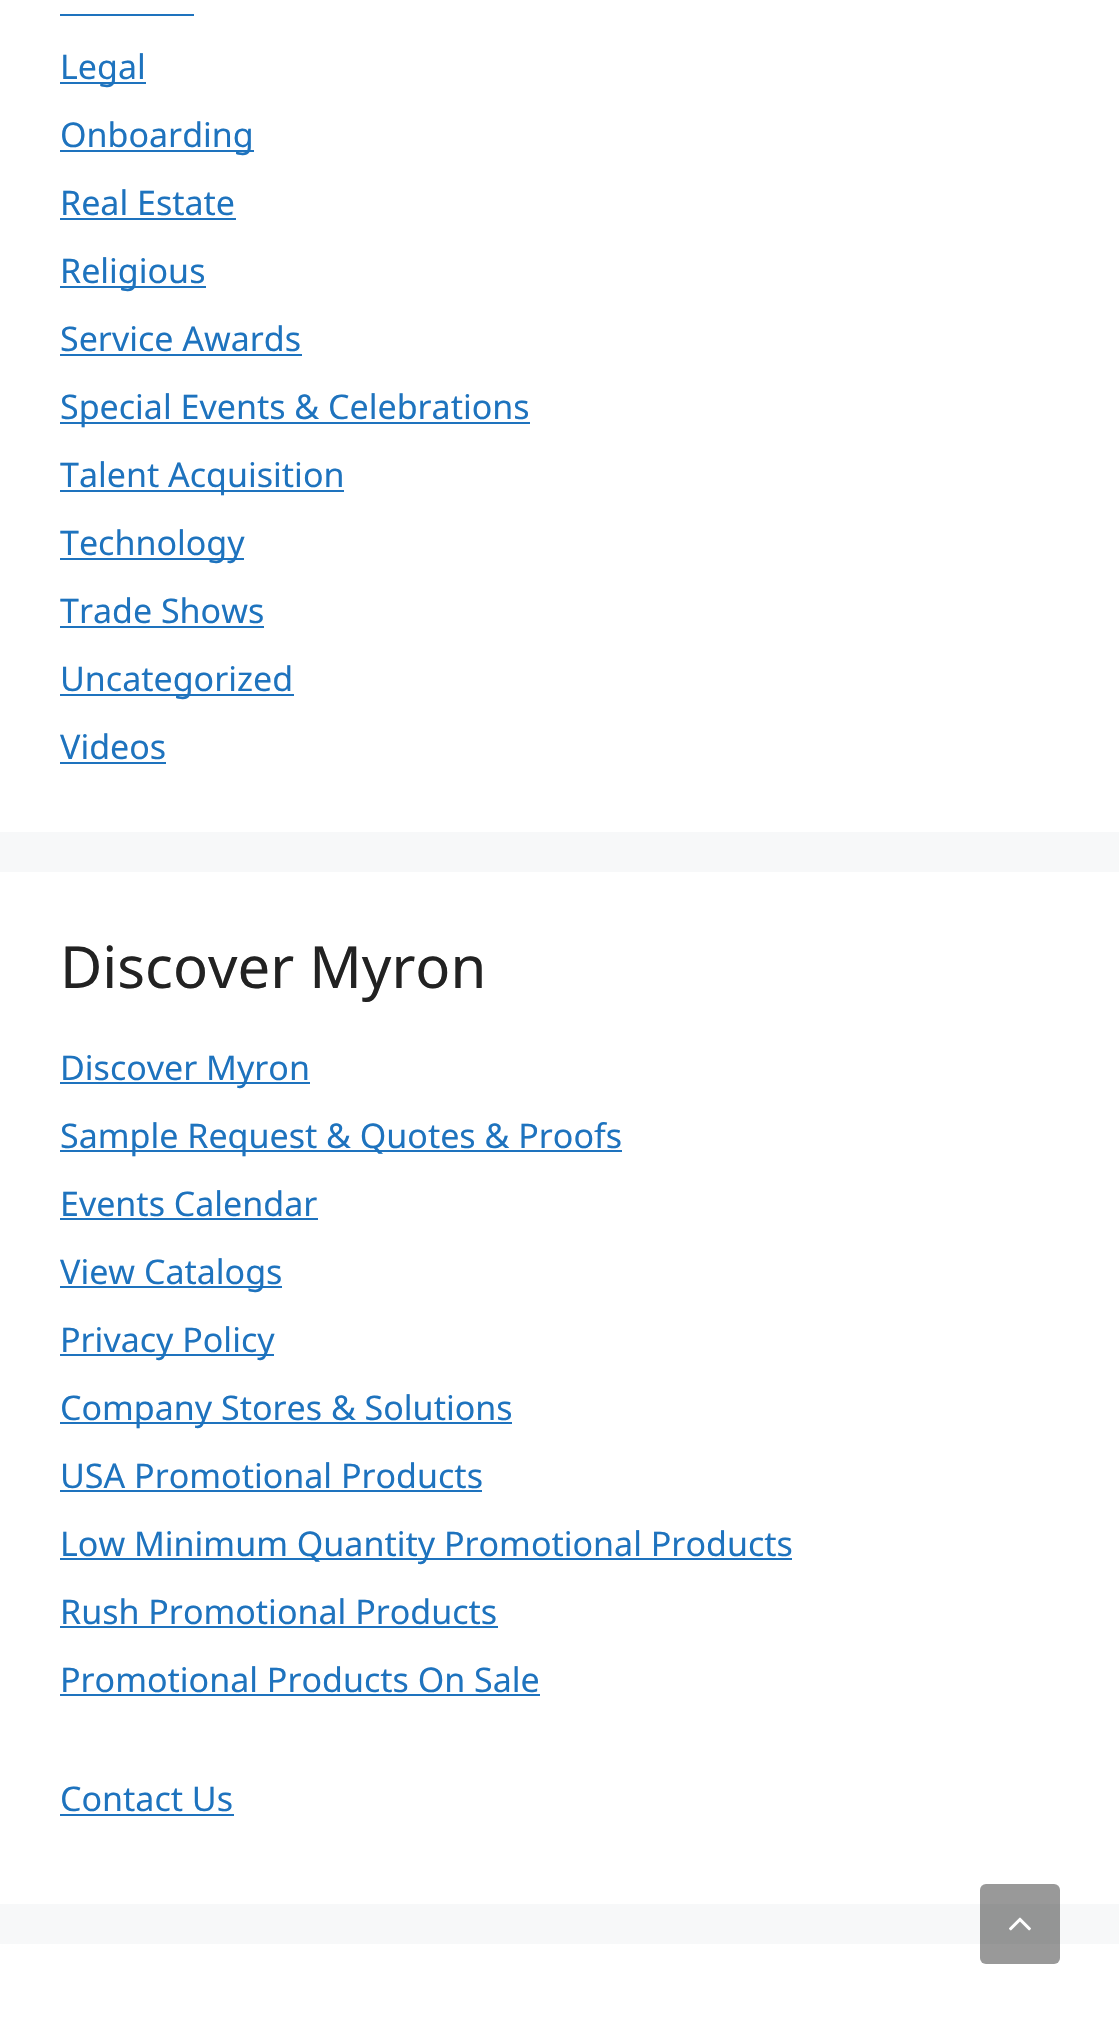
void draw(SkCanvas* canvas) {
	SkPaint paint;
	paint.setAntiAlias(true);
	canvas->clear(0xfff7f8f9);
	paint.setColor(0xffffffff);
	canvas->drawRect(SkRect::MakeXYWH(0, 0, 1119, 832), paint);
	paint.setColor(0xff1e73be);
	canvas->drawRect(SkRect::MakeXYWH(60, 14, 134, 2), paint);
	canvas->drawRect(SkRect::MakeXYWH(60, 82, 86, 2), paint);
	SkFont f1(fontMgr->matchFamilyStyle("Noto Sans", SkFontStyle::Normal()), 34);
	f1.setSubpixel(true);
	canvas->drawString("Legal", 60, 79, f1, paint);
	canvas->drawRect(SkRect::MakeXYWH(60, 150, 194, 2), paint);
	canvas->drawString("Onboarding", 60, 147, f1, paint);
	canvas->drawString("Real Estate", 60, 215, f1, paint);
	canvas->drawRect(SkRect::MakeXYWH(60, 218, 176, 2), paint);
	canvas->drawRect(SkRect::MakeXYWH(60, 286, 146, 2), paint);
	canvas->drawString("Religious", 60, 283, f1, paint);
	canvas->drawString("Service Awards", 60, 351, f1, paint);
	canvas->drawRect(SkRect::MakeXYWH(60, 354, 242, 2), paint);
	canvas->drawRect(SkRect::MakeXYWH(60, 422, 470, 2), paint);
	canvas->drawString("Special Events & Celebrations", 60, 419, f1, paint);
	canvas->drawRect(SkRect::MakeXYWH(60, 490, 284, 2), paint);
	canvas->drawString("Talent Acquisition", 60, 487, f1, paint);
	canvas->drawRect(SkRect::MakeXYWH(60, 558, 184, 2), paint);
	canvas->drawString("Technology", 60, 555, f1, paint);
	canvas->drawString("Trade Shows", 60, 623, f1, paint);
	canvas->drawRect(SkRect::MakeXYWH(60, 626, 204, 2), paint);
	canvas->drawRect(SkRect::MakeXYWH(60, 694, 234, 2), paint);
	canvas->drawString("Uncategorized", 60, 691, f1, paint);
	canvas->drawString("Videos", 60, 759, f1, paint);
	canvas->drawRect(SkRect::MakeXYWH(60, 762, 106, 2), paint);
	paint.setColor(0xffffffff);
	canvas->drawRect(SkRect::MakeXYWH(0, 872, 1119, 1032), paint);
	SkFont f2(fontMgr->matchFamilyStyle("Noto Sans", SkFontStyle::Normal()), 58);
	f2.setSubpixel(true);
	paint.setColor(0xff222222);
	canvas->drawString("Discover Myron", 60, 988, f2, paint);
	paint.setColor(0xff1e73be);
	canvas->drawRect(SkRect::MakeXYWH(60, 1082, 250, 2), paint);
	canvas->drawString("Discover Myron", 60, 1080, f1, paint);
	canvas->drawRect(SkRect::MakeXYWH(60, 1150, 562, 2), paint);
	canvas->drawString("Sample Request & Quotes & Proofs", 60, 1148, f1, paint);
	canvas->drawString("Events Calendar", 60, 1216, f1, paint);
	canvas->drawRect(SkRect::MakeXYWH(60, 1218, 258, 2), paint);
	canvas->drawRect(SkRect::MakeXYWH(60, 1286, 222, 2), paint);
	canvas->drawString("View Catalogs", 60, 1284, f1, paint);
	canvas->drawRect(SkRect::MakeXYWH(60, 1354, 214, 2), paint);
	canvas->drawString("Privacy Policy", 60, 1352, f1, paint);
	canvas->drawRect(SkRect::MakeXYWH(60, 1422, 452, 2), paint);
	canvas->drawString("Company Stores & Solutions", 60, 1420, f1, paint);
	canvas->drawString("USA Promotional Products", 60, 1488, f1, paint);
	canvas->drawRect(SkRect::MakeXYWH(60, 1490, 422, 2), paint);
	canvas->drawRect(SkRect::MakeXYWH(60, 1558, 732, 2), paint);
	canvas->drawString("Low Minimum Quantity Promotional Products", 60, 1556, f1, paint);
	canvas->drawString("Rush Promotional Products", 60, 1624, f1, paint);
	canvas->drawRect(SkRect::MakeXYWH(60, 1626, 438, 2), paint);
	canvas->drawString("Promotional Products On Sale", 60, 1692, f1, paint);
	canvas->drawRect(SkRect::MakeXYWH(60, 1694, 480, 2), paint);
	canvas->drawString("Contact Us", 60, 1811, f1, paint);
	canvas->drawRect(SkRect::MakeXYWH(60, 1814, 174, 2), paint);
	paint.setColor(0xffffffff);
	canvas->drawRect(SkRect::MakeXYWH(0, 1944, 1119, 80), paint);
	paint.setColor(0x66000000);
	canvas->drawRoundRect(SkRect::MakeXYWH(980, 1884, 80, 80), 6, 6, paint);
	canvas->drawImageRect(SkImages::DeferredFromEncodedData(SkData::MakeFromFileName("img1.png")), SkRect::MakeXYWH(1009, 1917, 22, 14), SkSamplingOptions());
}
